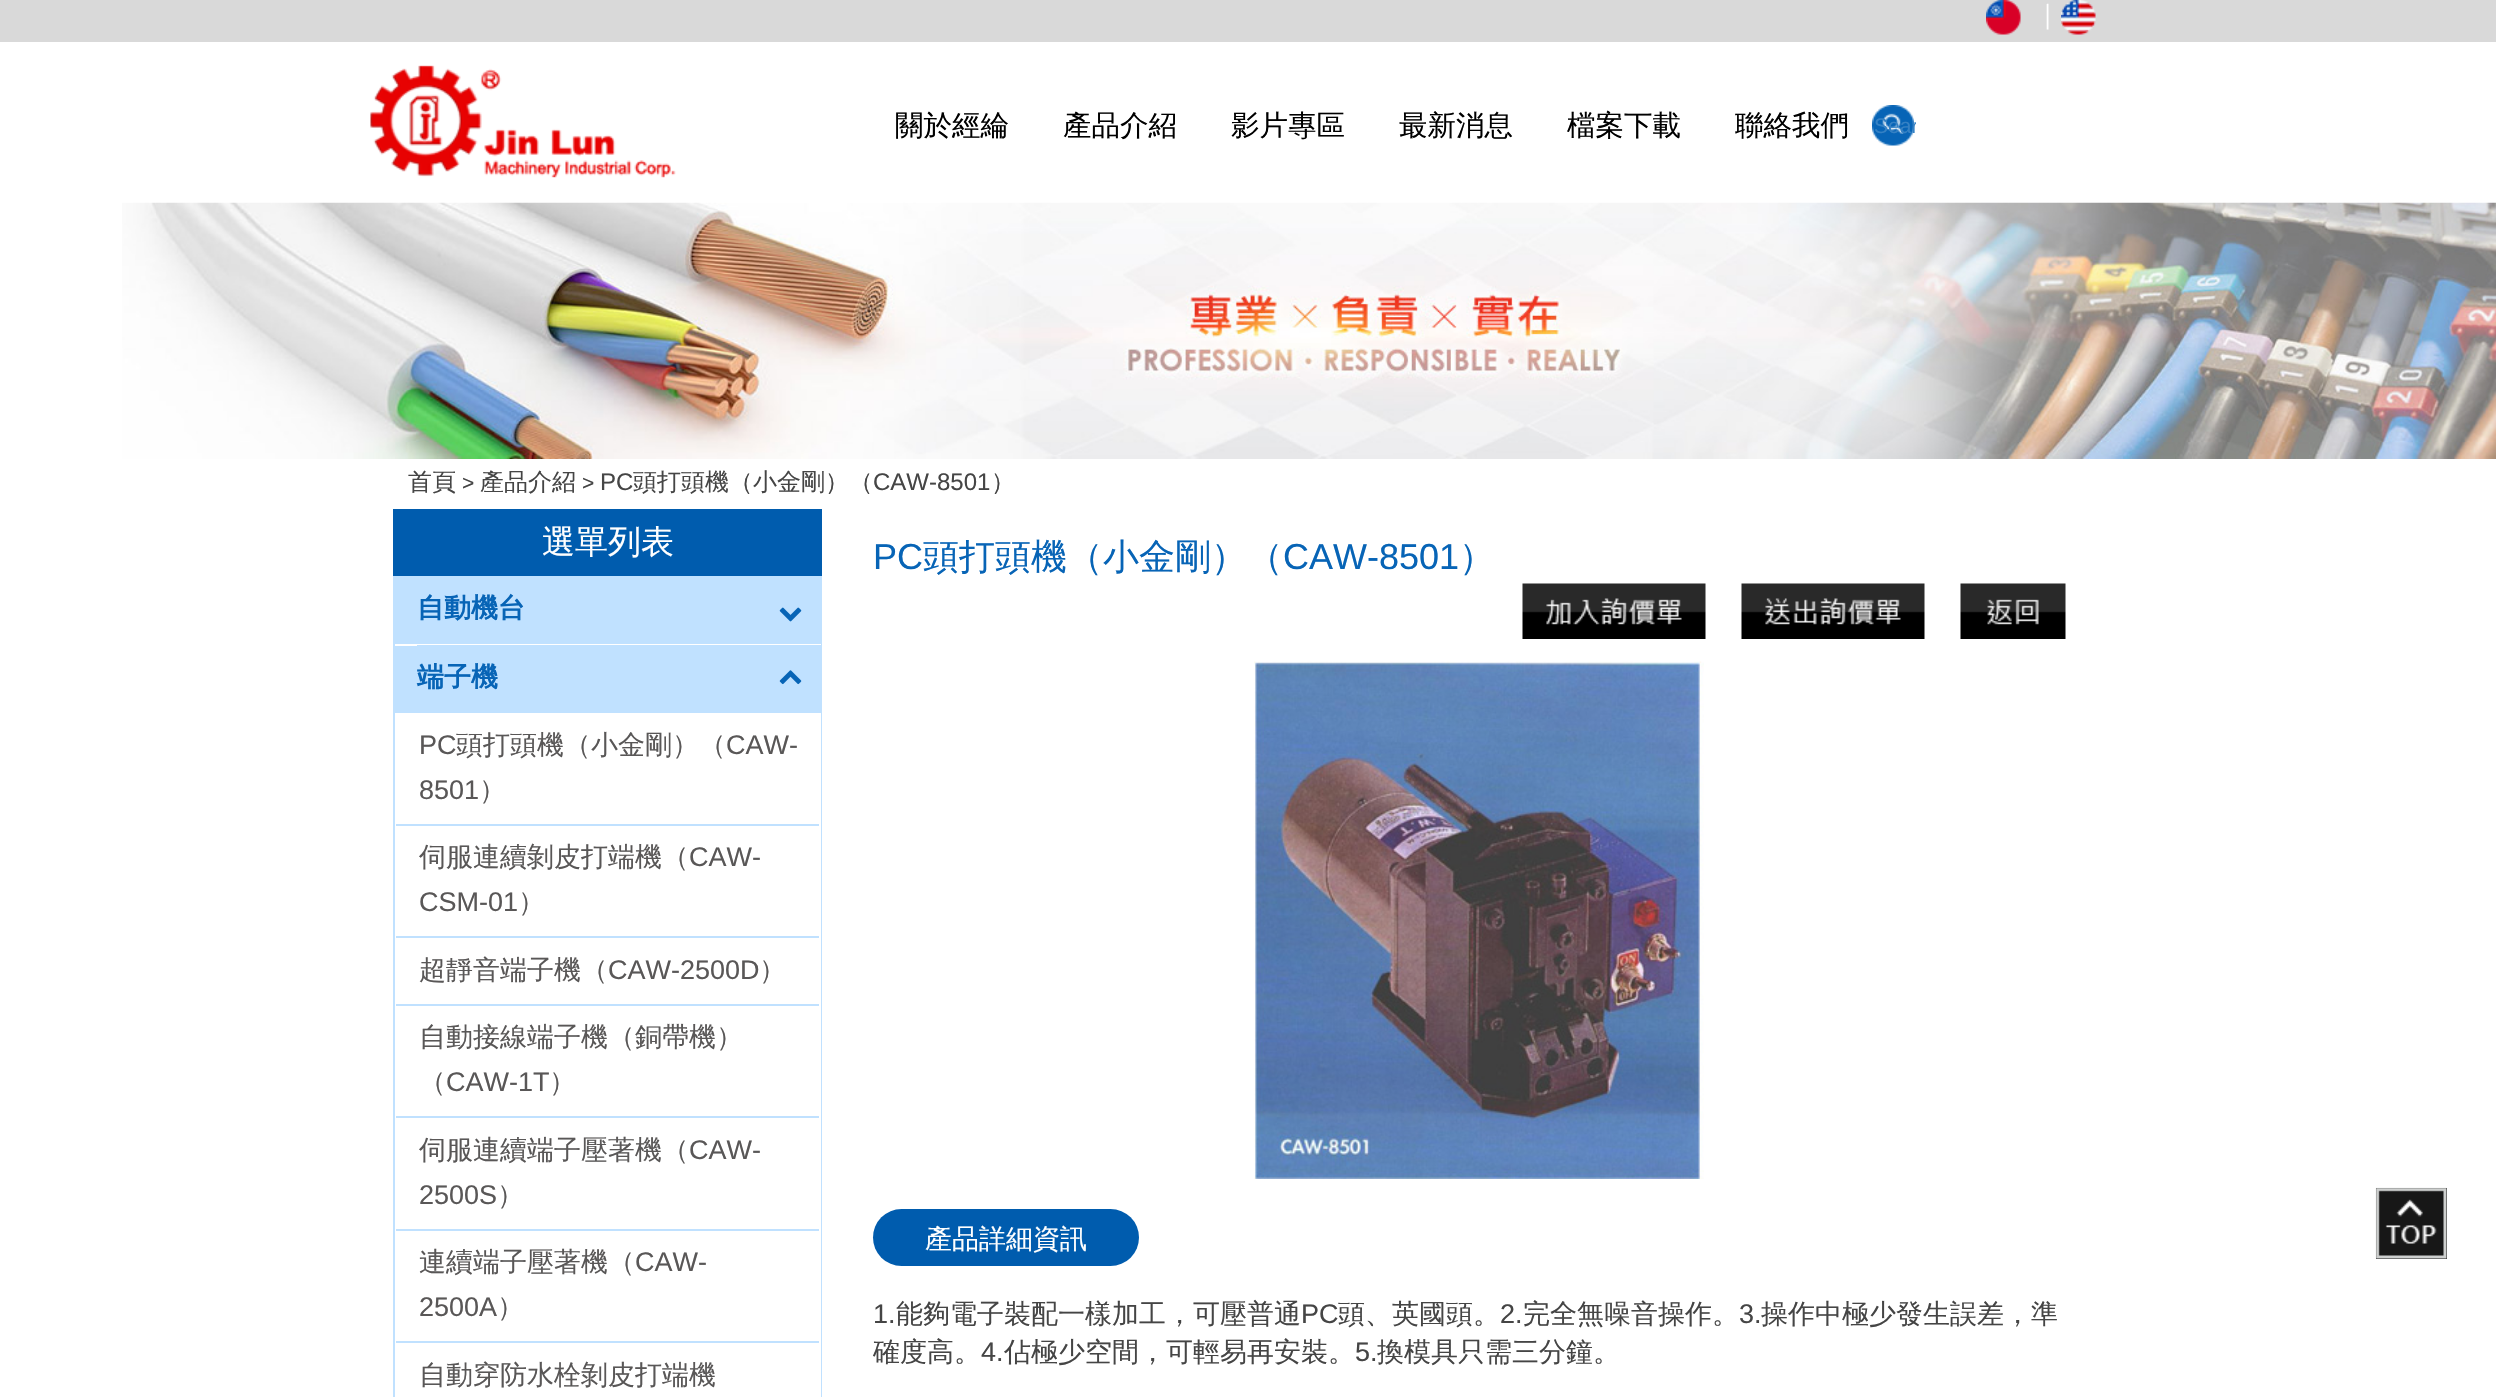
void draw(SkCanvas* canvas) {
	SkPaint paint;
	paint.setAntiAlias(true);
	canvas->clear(0xffffffff);
	paint.setColor(0xffd9d9d9);
	canvas->drawRect(SkRect::MakeXYWH(0, 0, 2496, 42), paint);
	canvas->drawImageRect(SkImages::DeferredFromEncodedData(SkData::MakeFromFileName("img1.png")), SkRect::MakeXYWH(1986, 0, 35, 35), SkSamplingOptions());
	SkFont f1(fontMgr->matchFamilyStyle("Liberation Sans", SkFontStyle::Normal()), 21);
	f1.setSubpixel(true);
	paint.setColor(0xffffffff);
	canvas->drawString("│", 2042, 23, f1, paint);
	canvas->drawImageRect(SkImages::DeferredFromEncodedData(SkData::MakeFromFileName("img2.png")), SkRect::MakeXYWH(2061, 0, 35, 35), SkSamplingOptions());
	canvas->drawImageRect(SkImages::DeferredFromEncodedData(SkData::MakeFromFileName("img3.png")), SkRect::MakeXYWH(370, 65, 306, 113), SkSamplingOptions());
	SkFont f2(fontMgr->matchFamilyStyle("WenQuanYi Zen Hei", SkFontStyle(500, SkFontStyle::kNormal_Width, SkFontStyle::kUpright_Slant)), 28.5);
	f2.setSubpixel(true);
	paint.setColor(0xff000000);
	canvas->drawString("關於經綸", 895, 135, f2, paint);
	canvas->drawString("產品介紹", 1063, 135, f2, paint);
	canvas->drawString("影片專區", 1231, 135, f2, paint);
	canvas->drawString("最新消息", 1399, 135, f2, paint);
	canvas->drawString("檔案下載", 1567, 135, f2, paint);
	canvas->drawString("聯絡我們", 1735, 135, f2, paint);
	canvas->drawImageRect(SkImages::DeferredFromEncodedData(SkData::MakeFromFileName("img4.png")), SkRect::MakeXYWH(1872, 105, 42, 41), SkSamplingOptions());
	canvas->save();
	canvas->clipRect(SkRect::MakeXYWH(1875, 114, 41, 24));
	paint.setColor(0xff3581c4);
	canvas->drawString("Sear", 1874, 133, f1, paint);
	canvas->restore();
	canvas->drawImageRect(SkImages::DeferredFromEncodedData(SkData::MakeFromFileName("img5.png")), SkRect::MakeXYWH(122, 202, 2374, 257), SkSamplingOptions());
	SkFont f3(fontMgr->matchFamilyStyle("WenQuanYi Zen Hei", SkFontStyle(500, SkFontStyle::kNormal_Width, SkFontStyle::kUpright_Slant)), 24);
	f3.setSubpixel(true);
	paint.setColor(0xff454545);
	canvas->drawString("首頁", 408, 490, f3, paint);
	canvas->drawString(">", 462, 490, f1, paint);
	canvas->drawString("產品介紹", 480, 490, f3, paint);
	canvas->drawString(">", 582, 490, f1, paint);
	SkFont f4(fontMgr->matchFamilyStyle("Liberation Sans", SkFontStyle::Normal()), 24);
	f4.setSubpixel(true);
	canvas->drawString("PC", 600, 490, f4, paint);
	canvas->drawString("頭打頭機（小金剛）（", 633, 490, f3, paint);
	canvas->drawString("CAW-8501", 873, 490, f4, paint);
	canvas->drawString("）", 991, 490, f3, paint);
	paint.setColor(0xff005cae);
	canvas->drawRect(SkRect::MakeXYWH(393, 509, 429, 67), paint);
	SkFont f5(fontMgr->matchFamilyStyle("WenQuanYi Zen Hei", SkFontStyle(500, SkFontStyle::kNormal_Width, SkFontStyle::kUpright_Slant)), 33);
	f5.setSubpixel(true);
	paint.setColor(0xffffffff);
	canvas->drawString("選單列表", 542, 553, f5, paint);
	paint.setColor(0xffc0e1ff);
	canvas->drawRect(SkRect::MakeXYWH(393, 576, 429, 821), paint);
	paint.setColor(0xffffffff);
	canvas->drawRect(SkRect::MakeXYWH(395, 644, 426, 2), paint);
	SkFont f6(fontMgr->matchFamilyStyle("WenQuanYi Zen Hei", SkFontStyle::Bold()), 27);
	f6.setSubpixel(true);
	paint.setColor(0xff0764b6);
	canvas->drawString("自動機台", 417, 617, f6, paint);
	canvas->drawImageRect(SkImages::DeferredFromEncodedData(SkData::MakeFromFileName("img6.png")), SkRect::MakeXYWH(779, 607, 23, 15), SkSamplingOptions());
	paint.setColor(0xffc0e1ff);
	canvas->drawRect(SkRect::MakeXYWH(417, 645, 404, 1), paint);
	paint.setColor(0xff0764b6);
	canvas->drawString("端子機", 417, 686, f6, paint);
	canvas->drawImageRect(SkImages::DeferredFromEncodedData(SkData::MakeFromFileName("img7.png")), SkRect::MakeXYWH(779, 670, 23, 15), SkSamplingOptions());
	paint.setColor(0xffffffff);
	canvas->drawRect(SkRect::MakeXYWH(395, 713, 426, 684), paint);
	paint.setColor(0xffc0e1ff);
	canvas->drawRect(SkRect::MakeXYWH(396, 824, 423, 2), paint);
	SkFont f7(fontMgr->matchFamilyStyle("Liberation Sans", SkFontStyle::Normal()), 27);
	f7.setSubpixel(true);
	paint.setColor(0xff595757);
	canvas->drawString("PC", 419, 754, f7, paint);
	SkFont f8(fontMgr->matchFamilyStyle("WenQuanYi Zen Hei", SkFontStyle(500, SkFontStyle::kNormal_Width, SkFontStyle::kUpright_Slant)), 27);
	f8.setSubpixel(true);
	canvas->drawString("頭打頭機（小金剛）（", 456, 754, f8, paint);
	canvas->drawString("CAW-", 726, 754, f7, paint);
	canvas->drawString("8501", 419, 799, f7, paint);
	canvas->drawString("）", 479, 799, f8, paint);
	paint.setColor(0xffc0e1ff);
	canvas->drawRect(SkRect::MakeXYWH(396, 936, 423, 2), paint);
	paint.setColor(0xff595757);
	canvas->drawString("伺服連續剝皮打端機（", 419, 866, f8, paint);
	canvas->drawString("CAW-", 689, 866, f7, paint);
	canvas->drawString("CSM-01", 419, 911, f7, paint);
	canvas->drawString("）", 518, 911, f8, paint);
	paint.setColor(0xffc0e1ff);
	canvas->drawRect(SkRect::MakeXYWH(396, 1004, 423, 2), paint);
	paint.setColor(0xff595757);
	canvas->drawString("超靜音端子機（", 419, 979, f8, paint);
	canvas->drawString("CAW-2500D", 608, 979, f7, paint);
	canvas->drawString("）", 759, 979, f8, paint);
	paint.setColor(0xffc0e1ff);
	canvas->drawRect(SkRect::MakeXYWH(396, 1116, 423, 2), paint);
	paint.setColor(0xff595757);
	canvas->drawString("自動接線端子機（銅帶機）", 419, 1046, f8, paint);
	canvas->drawString("（", 419, 1091, f8, paint);
	canvas->drawString("CAW-1T", 446, 1091, f7, paint);
	canvas->drawString("）", 549, 1091, f8, paint);
	paint.setColor(0xffc0e1ff);
	canvas->drawRect(SkRect::MakeXYWH(396, 1229, 423, 2), paint);
	paint.setColor(0xff595757);
	canvas->drawString("伺服連續端子壓著機（", 419, 1159, f8, paint);
	canvas->drawString("CAW-", 689, 1159, f7, paint);
	canvas->drawString("2500S", 419, 1204, f7, paint);
	canvas->drawString("）", 497, 1204, f8, paint);
	paint.setColor(0xffc0e1ff);
	canvas->drawRect(SkRect::MakeXYWH(396, 1341, 423, 2), paint);
	paint.setColor(0xff595757);
	canvas->drawString("連續端子壓著機（", 419, 1271, f8, paint);
	canvas->drawString("CAW-", 635, 1271, f7, paint);
	canvas->drawString("2500A", 419, 1316, f7, paint);
	canvas->drawString("）", 497, 1316, f8, paint);
	canvas->drawString("自動穿防水栓剝皮打端機", 419, 1384, f8, paint);
	SkFont f9(fontMgr->matchFamilyStyle("Liberation Sans", SkFontStyle::Normal()), 36);
	f9.setSubpixel(true);
	paint.setColor(0xff0764b6);
	canvas->drawString("PC", 873, 569, f9, paint);
	SkFont f10(fontMgr->matchFamilyStyle("WenQuanYi Zen Hei", SkFontStyle(500, SkFontStyle::kNormal_Width, SkFontStyle::kUpright_Slant)), 36);
	f10.setSubpixel(true);
	canvas->drawString("頭打頭機（小金剛）（", 923, 569, f10, paint);
	canvas->drawString("CAW-8501", 1283, 569, f9, paint);
	canvas->drawString("）", 1459, 569, f10, paint);
	canvas->drawImageRect(SkImages::DeferredFromEncodedData(SkData::MakeFromFileName("img8.png")), SkRect::MakeXYWH(1522, 583, 184, 56), SkSamplingOptions());
	canvas->drawImageRect(SkImages::DeferredFromEncodedData(SkData::MakeFromFileName("img9.png")), SkRect::MakeXYWH(1741, 583, 184, 56), SkSamplingOptions());
	canvas->drawImageRect(SkImages::DeferredFromEncodedData(SkData::MakeFromFileName("img10.png")), SkRect::MakeXYWH(1960, 583, 106, 56), SkSamplingOptions());
	canvas->drawImageRect(SkImages::DeferredFromEncodedData(SkData::MakeFromFileName("img11.png")), SkRect::MakeXYWH(1254, 661, 450, 518), SkSamplingOptions());
	paint.setColor(0xff005cae);
	canvas->drawRoundRect(SkRect::MakeXYWH(873, 1209, 266, 57), 28.5, 28.5, paint);
	paint.setColor(0xffffffff);
	canvas->drawString("產品詳細資訊", 925, 1248, f8, paint);
	paint.setColor(0xff454545);
	canvas->drawString("1.", 873, 1323, f7, paint);
	canvas->drawString("能夠電子裝配一樣加工，可壓普通", 896, 1323, f8, paint);
	canvas->drawString("PC", 1301, 1323, f7, paint);
	canvas->drawString("頭、英國頭。", 1338, 1323, f8, paint);
	canvas->drawString("2.", 1500, 1323, f7, paint);
	canvas->drawString("完全無噪音操作。", 1523, 1323, f8, paint);
	canvas->drawString("3.", 1739, 1323, f7, paint);
	canvas->drawString("操作中極少發生誤差，準", 1761, 1323, f8, paint);
	canvas->drawString("確度高。", 873, 1361, f8, paint);
	canvas->drawString("4.", 981, 1361, f7, paint);
	canvas->drawString("佔極少空間，可輕易再安裝。", 1004, 1361, f8, paint);
	canvas->drawString("5.", 1355, 1361, f7, paint);
	canvas->drawString("換模具只需三分鐘。", 1377, 1361, f8, paint);
	paint.setColor(0xff171717);
	canvas->drawRect(SkRect::MakeXYWH(2376, 1188, 71, 71), paint);
	canvas->drawImageRect(SkImages::DeferredFromEncodedData(SkData::MakeFromFileName("img12.png")), SkRect::MakeXYWH(2375, 1187, 72, 72), SkSamplingOptions());
}
